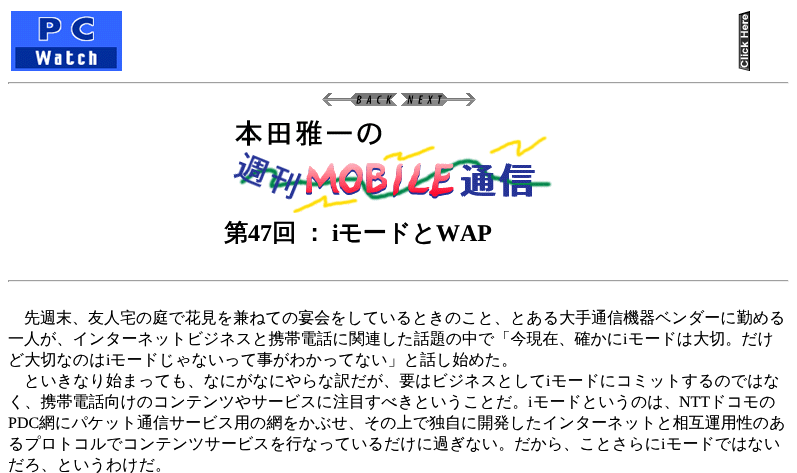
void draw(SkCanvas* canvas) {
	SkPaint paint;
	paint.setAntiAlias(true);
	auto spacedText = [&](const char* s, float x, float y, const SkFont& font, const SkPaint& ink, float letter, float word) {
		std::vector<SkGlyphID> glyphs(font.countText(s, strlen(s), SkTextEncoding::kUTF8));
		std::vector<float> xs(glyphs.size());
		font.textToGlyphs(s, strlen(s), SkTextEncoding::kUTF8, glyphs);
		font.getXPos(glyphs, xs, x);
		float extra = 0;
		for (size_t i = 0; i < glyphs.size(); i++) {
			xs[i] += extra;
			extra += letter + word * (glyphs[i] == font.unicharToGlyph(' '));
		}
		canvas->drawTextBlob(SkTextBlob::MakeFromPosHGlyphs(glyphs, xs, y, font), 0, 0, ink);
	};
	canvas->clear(0xffffffff);
	canvas->drawImageRect(SkImages::DeferredFromEncodedData(SkData::MakeFromFileName("img1.png")), SkRect::MakeXYWH(11, 11, 111, 60), SkSamplingOptions());
	canvas->drawImageRect(SkImages::DeferredFromEncodedData(SkData::MakeFromFileName("img2.png")), SkRect::MakeXYWH(738, 11, 12, 60), SkSamplingOptions());
	paint.setColor(0xff9f9f9f);
	canvas->drawRect(SkRect::MakeXYWH(8, 82, 781, 1), paint);
	paint.setColor(0xffeeeeee);
	canvas->drawRect(SkRect::MakeXYWH(788, 82, 1, 2), paint);
	canvas->drawRect(SkRect::MakeXYWH(8, 83, 781, 1), paint);
	paint.setColor(0xff9f9f9f);
	canvas->drawRect(SkRect::MakeXYWH(8, 82, 1, 2), paint);
	canvas->drawImageRect(SkImages::DeferredFromEncodedData(SkData::MakeFromFileName("img3.png")), SkRect::MakeXYWH(322, 93, 75, 13), SkSamplingOptions());
	canvas->drawImageRect(SkImages::DeferredFromEncodedData(SkData::MakeFromFileName("img4.png")), SkRect::MakeXYWH(401, 93, 75, 13), SkSamplingOptions());
	canvas->drawImageRect(SkImages::DeferredFromEncodedData(SkData::MakeFromFileName("img5.png")), SkRect::MakeXYWH(233, 120, 320, 93), SkSamplingOptions());
	SkFont f1(fontMgr->matchFamilyStyle("WenQuanYi Zen Hei", SkFontStyle::Bold()), 24);
	f1.setSubpixel(true);
	paint.setColor(0xff000000);
	canvas->drawString("第", 224, 241, f1, paint);
	SkFont f2(fontMgr->matchFamilyStyle("Liberation Serif", SkFontStyle::Bold()), 24);
	f2.setSubpixel(true);
	canvas->drawString("47", 248, 241, f2, paint);
	spacedText("回 ：", 272, 241, f1, paint, 0, -1);
	canvas->drawString("i", 332, 241, f2, paint);
	canvas->drawString("モードと", 338, 241, f1, paint);
	canvas->drawString("WAP", 436, 241, f2, paint);
	paint.setColor(0xff9f9f9f);
	canvas->drawRect(SkRect::MakeXYWH(8, 280, 781, 1), paint);
	paint.setColor(0xffeeeeee);
	canvas->drawRect(SkRect::MakeXYWH(788, 280, 1, 2), paint);
	canvas->drawRect(SkRect::MakeXYWH(8, 281, 781, 1), paint);
	paint.setColor(0xff9f9f9f);
	canvas->drawRect(SkRect::MakeXYWH(8, 280, 1, 2), paint);
	SkFont f3(fontMgr->matchFamilyStyle("WenQuanYi Zen Hei", SkFontStyle(500, SkFontStyle::kNormal_Width, SkFontStyle::kUpright_Slant)), 16);
	f3.setSubpixel(true);
	paint.setColor(0xff000000);
	canvas->drawString("先週末、友人宅の庭で花見を兼ねての宴会をしているときのこと、とある大手通信機器ベンダーに勤める", 24, 323, f3, paint);
	canvas->drawString("一人が、インターネットビジネスと携帯電話に関連した話題の中で「今現在、確かに", 8, 344, f3, paint);
	SkFont f4(fontMgr->matchFamilyStyle("Liberation Serif", SkFontStyle::Normal()), 16);
	f4.setSubpixel(true);
	canvas->drawString("i", 623, 344, f4, paint);
	canvas->drawString("モードは大切。だけ", 628, 344, f3, paint);
	canvas->drawString("ど大切なのは", 8, 365, f3, paint);
	canvas->drawString("i", 106, 365, f4, paint);
	canvas->drawString("モードじゃないって事がわかってない」と話し始めた。", 110, 365, f3, paint);
	canvas->drawString("といきなり始まっても、なにがなにやらな訳だが、要はビジネスとして", 24, 386, f3, paint);
	canvas->drawString("i", 546, 386, f4, paint);
	canvas->drawString("モードにコミットするのではな", 551, 386, f3, paint);
	canvas->drawString("く、携帯電話向けのコンテンツやサービスに注目すべきということだ。", 8, 407, f3, paint);
	canvas->drawString("i", 528, 407, f4, paint);
	canvas->drawString("モードというのは、", 533, 407, f3, paint);
	canvas->drawString("NTT", 679, 407, f4, paint);
	canvas->drawString("ドコモの", 710, 407, f3, paint);
	canvas->drawString("PDC", 8, 428, f4, paint);
	canvas->drawString("網にパケット通信サービス用の網をかぶせ、その上で独自に開発したインターネットと相互運用性のあ", 39, 428, f3, paint);
	canvas->drawString("るプロトコルでコンテンツサービスを行なっているだけに過ぎない。だから、ことさらに", 8, 449, f3, paint);
	canvas->drawString("i", 661, 449, f4, paint);
	canvas->drawString("モードではない", 666, 449, f3, paint);
	canvas->drawString("だろ、というわけだ。", 8, 470, f3, paint);
}
